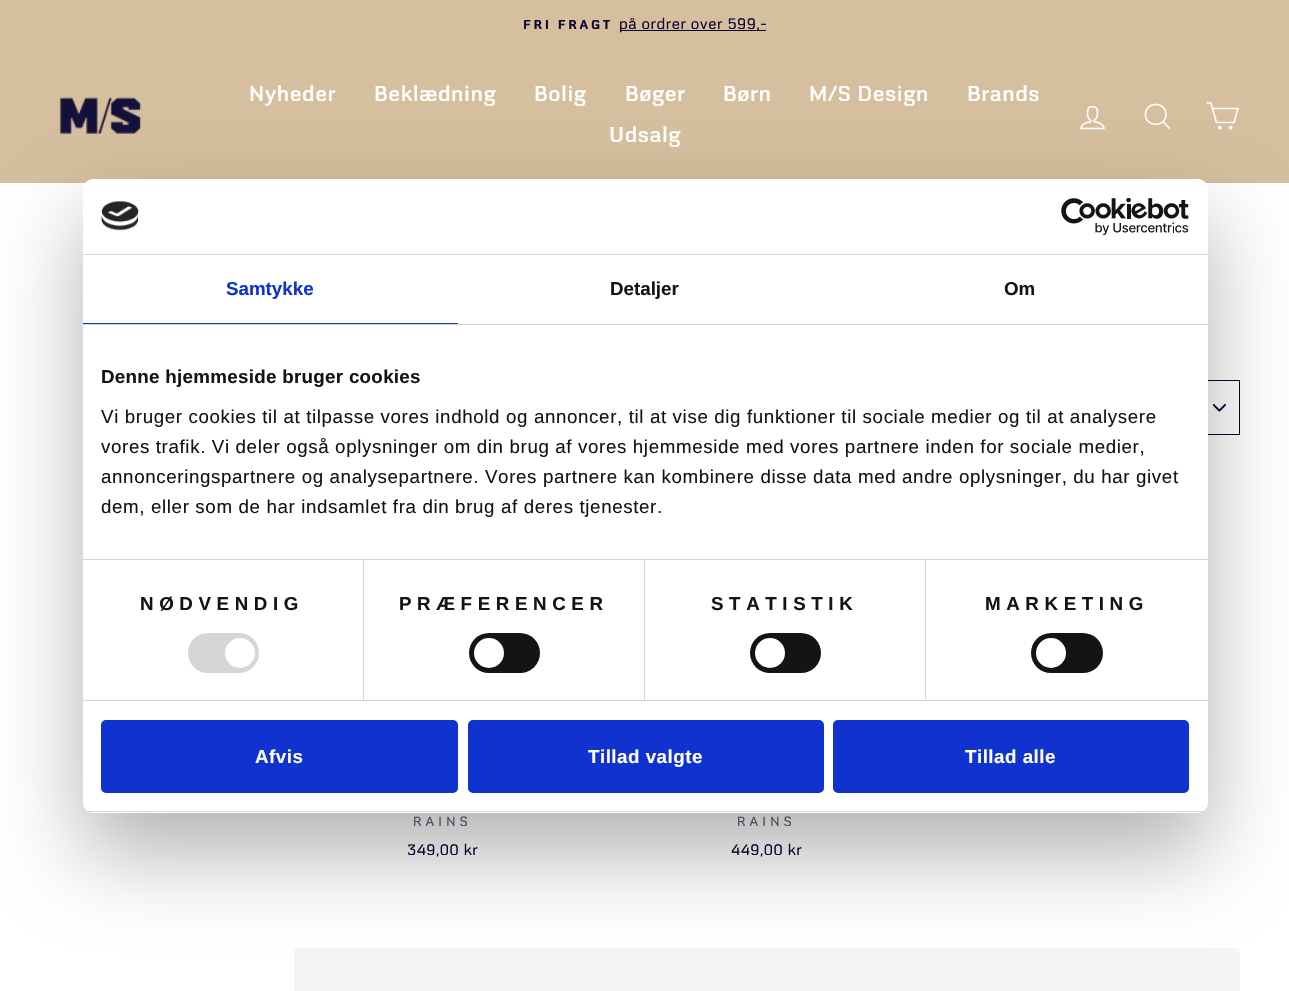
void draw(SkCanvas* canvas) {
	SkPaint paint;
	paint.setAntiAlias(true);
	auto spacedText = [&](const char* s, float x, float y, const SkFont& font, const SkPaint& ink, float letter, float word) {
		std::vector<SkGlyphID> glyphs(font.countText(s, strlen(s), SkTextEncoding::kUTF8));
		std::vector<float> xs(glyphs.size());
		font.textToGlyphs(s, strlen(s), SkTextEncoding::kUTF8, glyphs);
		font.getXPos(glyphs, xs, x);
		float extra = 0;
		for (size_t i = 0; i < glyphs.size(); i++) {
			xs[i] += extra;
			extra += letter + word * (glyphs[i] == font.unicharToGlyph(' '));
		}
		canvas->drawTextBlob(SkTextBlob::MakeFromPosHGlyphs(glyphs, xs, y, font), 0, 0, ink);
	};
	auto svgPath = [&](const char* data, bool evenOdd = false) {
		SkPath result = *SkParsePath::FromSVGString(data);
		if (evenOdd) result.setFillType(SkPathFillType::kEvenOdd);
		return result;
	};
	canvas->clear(0xffffffff);
	paint.setColor(0xffd6bf9e);
	canvas->drawRect(SkRect::MakeXYWH(0, 0, 1289, 183), paint);
	SkFont f1(fontMgr->matchFamilyStyle("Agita", SkFontStyle::Bold()), 13.5);
	f1.setSubpixel(true);
	paint.setColor(0xff0d0533);
	spacedText("FRI FRAGT", 523, 29, f1, paint, 2.75, 0);
	canvas->drawRect(SkRect::MakeXYWH(620, 30, 146, 1), paint);
	SkFont f2(fontMgr->matchFamilyStyle("Agita", SkFontStyle::Normal()), 16);
	f2.setSubpixel(true);
	spacedText("på ordrer over 599,-", 619, 29, f2, paint, 0.5, 0);
	canvas->drawImageRect(SkImages::DeferredFromEncodedData(SkData::MakeFromFileName("img1.png")), SkRect::MakeXYWH(59, 97, 83, 37), SkSamplingOptions());
	SkFont f3(fontMgr->matchFamilyStyle("Agita", SkFontStyle(600, SkFontStyle::kNormal_Width, SkFontStyle::kUpright_Slant)), 22.5);
	f3.setSubpixel(true);
	paint.setColor(0xffffffff);
	spacedText("Nyheder", 249, 101, f3, paint, 0.5, 0);
	spacedText("Beklædning", 374, 101, f3, paint, 0.5, 0);
	spacedText("Bolig", 534, 101, f3, paint, 0.5, 0);
	spacedText("Bøger", 625, 101, f3, paint, 0.5, 0);
	spacedText("Børn", 723, 101, f3, paint, 0.5, 0);
	spacedText("M/S Design", 809, 101, f3, paint, 0.5, 0);
	spacedText("Brands", 967, 101, f3, paint, 0.5, 0);
	spacedText("Udsalg", 609, 142, f3, paint, 0.5, 0);
	canvas->drawImageRect(SkImages::DeferredFromEncodedData(SkData::MakeFromFileName("img2.png")), SkRect::MakeXYWH(1080, 105, 25, 25), SkSamplingOptions());
	paint.setStroke(true);
	paint.setStrokeWidth(1.6);
	canvas->drawPath(svgPath("M1166 114.5C1166 127.5 1145.5 127.5 1145.5 114.5C1145.5 101 1166 101 1166 114.5ZM1169.5 128.5L1163 121.5"), paint);
	canvas->drawPath(svgPath("M1212.5 108.5H1238L1234 122.5H1216.5L1211 103H1206.5"), paint);
	canvas->drawCircle(1219.8, 127.7, 1.1, paint);
	canvas->drawCircle(1230.7, 127.7, 1.1, paint);
	canvas->drawImageRect(SkImages::DeferredFromEncodedData(SkData::MakeFromFileName("img3.png")), SkRect::MakeXYWH(1213, 404, 13, 8), SkSamplingOptions());
	paint.setStrokeWidth(1);
	paint.setColor(0xff0d0533);
	canvas->drawRect(SkRect::MakeXYWH(1030.5, 380.5, 209, 54), paint);
	SkFont f4(fontMgr->matchFamilyStyle("Agita", SkFontStyle::Normal()), 14);
	f4.setSubpixel(true);
	paint.setStroke(false);
	paint.setColor(0xff625d7a);
	spacedText("RAINS", 413, 826, f4, paint, 4.25, 0);
	paint.setColor(0xff0d0533);
	spacedText("349,00 kr", 407, 855, f2, paint, 0.5, 0);
	paint.setColor(0xff625d7a);
	spacedText("RAINS", 737, 826, f4, paint, 4.25, 0);
	paint.setColor(0xff0d0533);
	spacedText("449,00 kr", 731, 855, f2, paint, 0.5, 0);
	paint.setColor(0xfff3f4f5);
	canvas->drawRoundRect(SkRect::MakeXYWH(294, 948, 946, 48), 5, 5, paint);
	paint.setColor(0x4d000000);
	paint.setMaskFilter(SkMaskFilter::MakeBlur(kNormal_SkBlurStyle, 42.5));
	canvas->drawRoundRect(SkRect::MakeXYWH(83, 219, 1125, 634), 10, 10, paint);
	paint.setMaskFilter(nullptr);
	paint.setColor(0xffffffff);
	canvas->drawRoundRect(SkRect::MakeXYWH(83, 179, 1125, 634), 10, 10, paint);
	paint.setColor(0xffd6d6d6);
	canvas->drawRect(SkRect::MakeXYWH(83, 254, 1125, 1), paint);
	canvas->drawImageRect(SkImages::DeferredFromEncodedData(SkData::MakeFromFileName("img4.png")), SkRect::MakeXYWH(101, 201, 38, 30), SkSamplingOptions());
	canvas->drawImageRect(SkImages::DeferredFromEncodedData(SkData::MakeFromFileName("img5.png")), SkRect::MakeXYWH(1061, 198, 128, 37), SkSamplingOptions());
	canvas->drawRect(SkRect::MakeXYWH(83, 324, 1125, 1), paint);
	paint.setColor(0xff1032cf);
	canvas->drawRect(SkRect::MakeXYWH(83, 323, 375, 1), paint);
	SkFont f5(fontMgr->matchFamilyStyle("Liberation Sans", SkFontStyle::Bold()), 18.75);
	f5.setSubpixel(true);
	canvas->drawString("Samtykke", 226, 295, f5, paint);
	paint.setColor(0xff141414);
	canvas->drawString("Detaljer", 610, 295, f5, paint);
	canvas->drawString("Om", 1004, 295, f5, paint);
	paint.setColor(0xffd6d6d6);
	canvas->drawRect(SkRect::MakeXYWH(83, 559, 1125, 1), paint);
	paint.setColor(0xff141414);
	spacedText("Denne hjemmeside bruger cookies", 101, 383, f5, paint, 0.3, 0);
	SkFont f6(fontMgr->matchFamilyStyle("Liberation Sans", SkFontStyle::Normal()), 18.75);
	f6.setSubpixel(true);
	spacedText("Vi bruger cookies til at tilpasse vores indhold og annoncer, til at vise dig funktioner til sociale medier og til at analysere", 101, 423, f6, paint, 0.62, 0);
	spacedText("vores trafik. Vi deler også oplysninger om din brug af vores hjemmeside med vores partnere inden for sociale medier,", 101, 453, f6, paint, 0.62, 0);
	spacedText("annonceringspartnere og analysepartnere. Vores partnere kan kombinere disse data med andre oplysninger, du har givet", 101, 483, f6, paint, 0.62, 0);
	spacedText("dem, eller som de har indsamlet fra din brug af deres tjenester.", 101, 513, f6, paint, 0.62, 0);
	paint.setColor(0xffd6d6d6);
	canvas->drawRect(SkRect::MakeXYWH(83, 700, 1125, 1), paint);
	canvas->drawRect(SkRect::MakeXYWH(363, 560, 1, 140), paint);
	paint.setColor(0xff141414);
	spacedText("NØDVENDIG", 140, 610, f5, paint, 5.6, 0);
	paint.setColor(0xffd6d6d6);
	canvas->drawRoundRect(SkRect::MakeXYWH(188, 633, 71, 40), 20, 20, paint);
	paint.setColor(0xffffffff);
	canvas->drawCircle(240, 653, 15, paint);
	paint.setColor(0xffd6d6d6);
	canvas->drawRect(SkRect::MakeXYWH(644, 560, 1, 140), paint);
	paint.setColor(0xff141414);
	spacedText("PRÆFERENCER", 399, 610, f5, paint, 5.6, 0);
	canvas->drawRoundRect(SkRect::MakeXYWH(469, 633, 71, 40), 20, 20, paint);
	paint.setColor(0xffffffff);
	canvas->drawCircle(489, 653, 15, paint);
	paint.setColor(0xffd6d6d6);
	canvas->drawRect(SkRect::MakeXYWH(925, 560, 1, 140), paint);
	paint.setColor(0xff141414);
	spacedText("STATISTIK", 711, 610, f5, paint, 5.6, 0);
	canvas->drawRoundRect(SkRect::MakeXYWH(750, 633, 71, 40), 20, 20, paint);
	paint.setColor(0xffffffff);
	canvas->drawCircle(770, 653, 15, paint);
	paint.setColor(0xff141414);
	spacedText("MARKETING", 985, 610, f5, paint, 5.6, 0);
	canvas->drawRoundRect(SkRect::MakeXYWH(1031, 633, 72, 40), 20, 20, paint);
	paint.setColor(0xffffffff);
	canvas->drawCircle(1051, 653, 15, paint);
	canvas->save();
	canvas->clipPath(svgPath("M93 179H1198C1203.5 179 1208 183.5 1208 189V803C1208 808.5 1203.5 813 1198 813H93C87.5 813 83 808.5 83 803V189C83 183.5 87.5 179 93 179Z"), true);
	paint.setColor(0xffd6d6d6);
	canvas->drawRect(SkRect::MakeXYWH(83, 811, 1125, 1), paint);
	canvas->restore();
	paint.setColor(0xff1032cf);
	canvas->drawRoundRect(SkRect::MakeXYWH(102.5, 721.5, 354, 70), 3.5, 3.5, paint);
	paint.setStroke(true);
	paint.setStrokeWidth(3);
	canvas->drawRoundRect(SkRect::MakeXYWH(102.5, 721.5, 354, 70), 3.5, 3.5, paint);
	paint.setStroke(false);
	paint.setColor(0xffffffff);
	spacedText("Afvis", 255, 763, f5, paint, 0.5, 0);
	paint.setColor(0xff1032cf);
	canvas->drawRoundRect(SkRect::MakeXYWH(469.5, 721.5, 353, 70), 3.5, 3.5, paint);
	paint.setStroke(true);
	canvas->drawRoundRect(SkRect::MakeXYWH(469.5, 721.5, 353, 70), 3.5, 3.5, paint);
	paint.setStroke(false);
	paint.setColor(0xffffffff);
	spacedText("Tillad valgte", 588, 763, f5, paint, 0.5, 0);
	paint.setColor(0xff1032cf);
	canvas->drawRoundRect(SkRect::MakeXYWH(834.5, 721.5, 353, 70), 3.5, 3.5, paint);
	paint.setStroke(true);
	canvas->drawRoundRect(SkRect::MakeXYWH(834.5, 721.5, 353, 70), 3.5, 3.5, paint);
	paint.setStroke(false);
	paint.setColor(0xffffffff);
	spacedText("Tillad alle", 965, 763, f5, paint, 0.5, 0);
}
